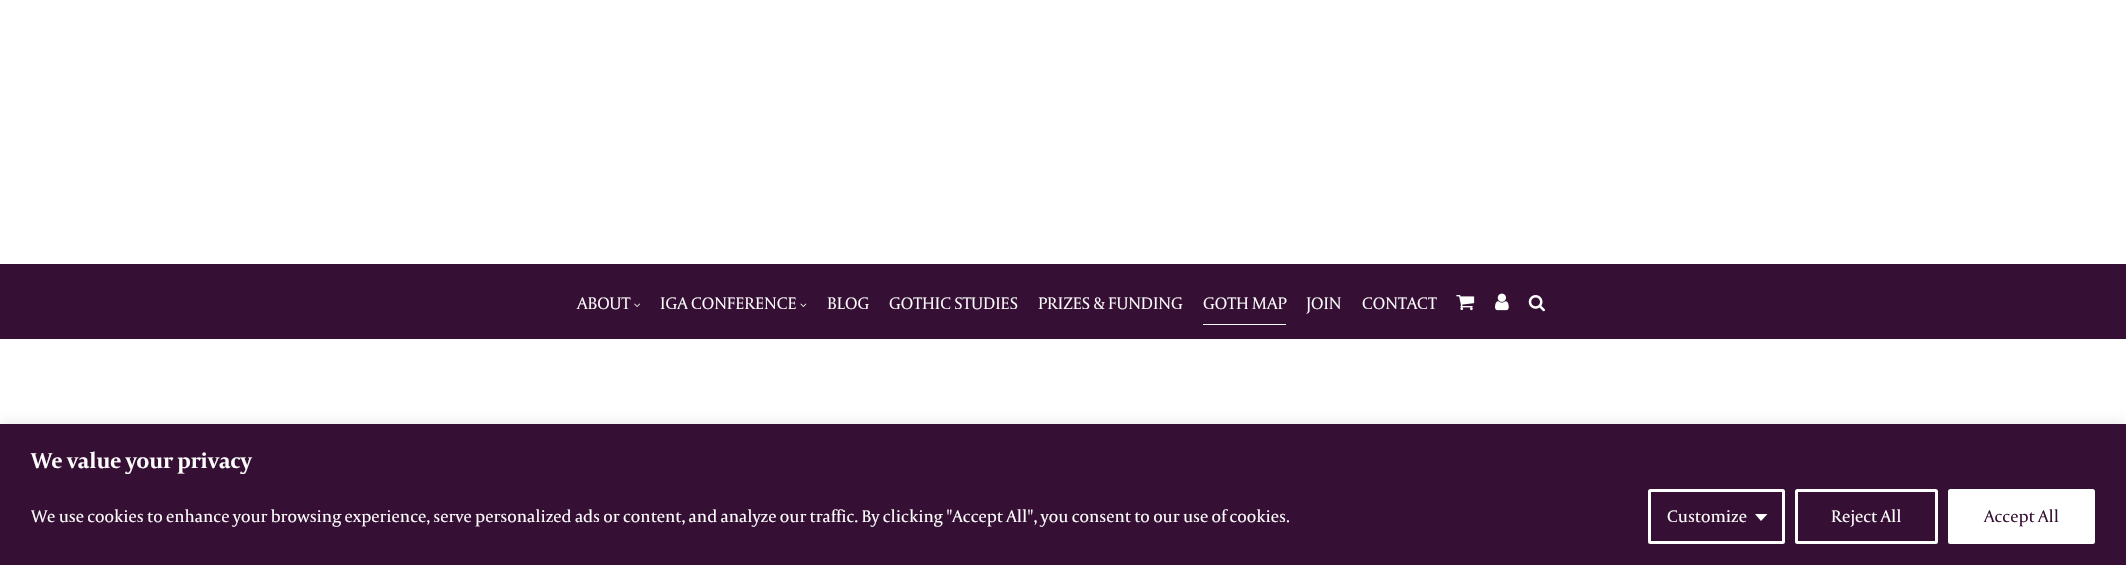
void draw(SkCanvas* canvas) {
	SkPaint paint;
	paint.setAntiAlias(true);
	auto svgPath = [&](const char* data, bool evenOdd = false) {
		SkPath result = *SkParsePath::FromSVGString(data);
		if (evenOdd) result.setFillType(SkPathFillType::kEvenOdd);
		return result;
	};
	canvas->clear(0xffffffff);
	paint.setColor(0xff351034);
	canvas->drawRect(SkRect::MakeXYWH(0, 264, 2126, 75), paint);
	SkFont f1(fontMgr->matchFamilyStyle("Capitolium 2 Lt", SkFontStyle(300, SkFontStyle::kNormal_Width, SkFontStyle::kUpright_Slant)), 17.5);
	f1.setSubpixel(true);
	paint.setColor(0xffffffff);
	canvas->drawString("ABOUT", 577, 309, f1, paint);
	canvas->drawImageRect(SkImages::DeferredFromEncodedData(SkData::MakeFromFileName("img1.png")), SkRect::MakeXYWH(634, 303, 6, 4), SkSamplingOptions());
	canvas->drawString("IGA CONFERENCE", 660, 309, f1, paint);
	canvas->drawImageRect(SkImages::DeferredFromEncodedData(SkData::MakeFromFileName("img2.png")), SkRect::MakeXYWH(800, 303, 7, 4), SkSamplingOptions());
	canvas->drawString("BLOG", 827, 309, f1, paint);
	canvas->drawString("GOTHIC STUDIES", 889, 309, f1, paint);
	canvas->drawString("PRIZES & FUNDING", 1038, 309, f1, paint);
	canvas->drawRect(SkRect::MakeXYWH(1203, 324, 83, 1), paint);
	canvas->drawString("GOTH MAP", 1203, 309, f1, paint);
	canvas->drawString("JOIN", 1306, 309, f1, paint);
	canvas->drawString("CONTACT", 1362, 309, f1, paint);
	canvas->drawImageRect(SkImages::DeferredFromEncodedData(SkData::MakeFromFileName("img3.png")), SkRect::MakeXYWH(1456, 295, 19, 16), SkSamplingOptions());
	canvas->drawImageRect(SkImages::DeferredFromEncodedData(SkData::MakeFromFileName("img4.png")), SkRect::MakeXYWH(1495, 293, 14, 18), SkSamplingOptions());
	canvas->drawImageRect(SkImages::DeferredFromEncodedData(SkData::MakeFromFileName("img5.png")), SkRect::MakeXYWH(1528, 295, 17, 17), SkSamplingOptions());
	paint.setColor(0x4dacabab);
	paint.setMaskFilter(SkMaskFilter::MakeBlur(kNormal_SkBlurStyle, 6));
	canvas->drawRect(SkRect::MakeXYWH(0, 423, 2126, 141), paint);
	paint.setMaskFilter(nullptr);
	paint.setColor(0xff351034);
	canvas->drawRect(SkRect::MakeXYWH(0, 424, 2126, 141), paint);
	SkFont f2(fontMgr->matchFamilyStyle("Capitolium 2", SkFontStyle::Bold()), 22.5);
	f2.setSubpixel(true);
	paint.setColor(0xffffffff);
	canvas->drawString("We value your privacy", 31, 468, f2, paint);
	SkFont f3(fontMgr->matchFamilyStyle("Capitolium 2", SkFontStyle::Normal()), 17.5);
	f3.setSubpixel(true);
	canvas->drawString("We use cookies to enhance your browsing experience, serve personalized ads or content, and analyze our traffic. By clicking \"Accept All\", you consent to our use of cookies.", 31, 522, f3, paint);
	paint.setStroke(true);
	paint.setStrokeWidth(3);
	canvas->drawRoundRect(SkRect::MakeXYWH(1649.5, 490.5, 134, 52), 1, 1, paint);
	paint.setStroke(false);
	canvas->drawString("Customize", 1667, 522, f3, paint);
	canvas->drawPath(svgPath("M1755 514H1767.5L1761 521Z"), paint);
	paint.setStroke(true);
	canvas->drawRoundRect(SkRect::MakeXYWH(1796.5, 490.5, 140, 52), 1, 1, paint);
	paint.setStroke(false);
	canvas->drawString("Reject All", 1831, 522, f3, paint);
	canvas->drawRoundRect(SkRect::MakeXYWH(1949.5, 490.5, 144, 52), 1, 1, paint);
	paint.setStroke(true);
	canvas->drawRoundRect(SkRect::MakeXYWH(1949.5, 490.5, 144, 52), 1, 1, paint);
	paint.setStroke(false);
	paint.setColor(0xff351034);
	canvas->drawString("Accept All", 1984, 522, f3, paint);
}
